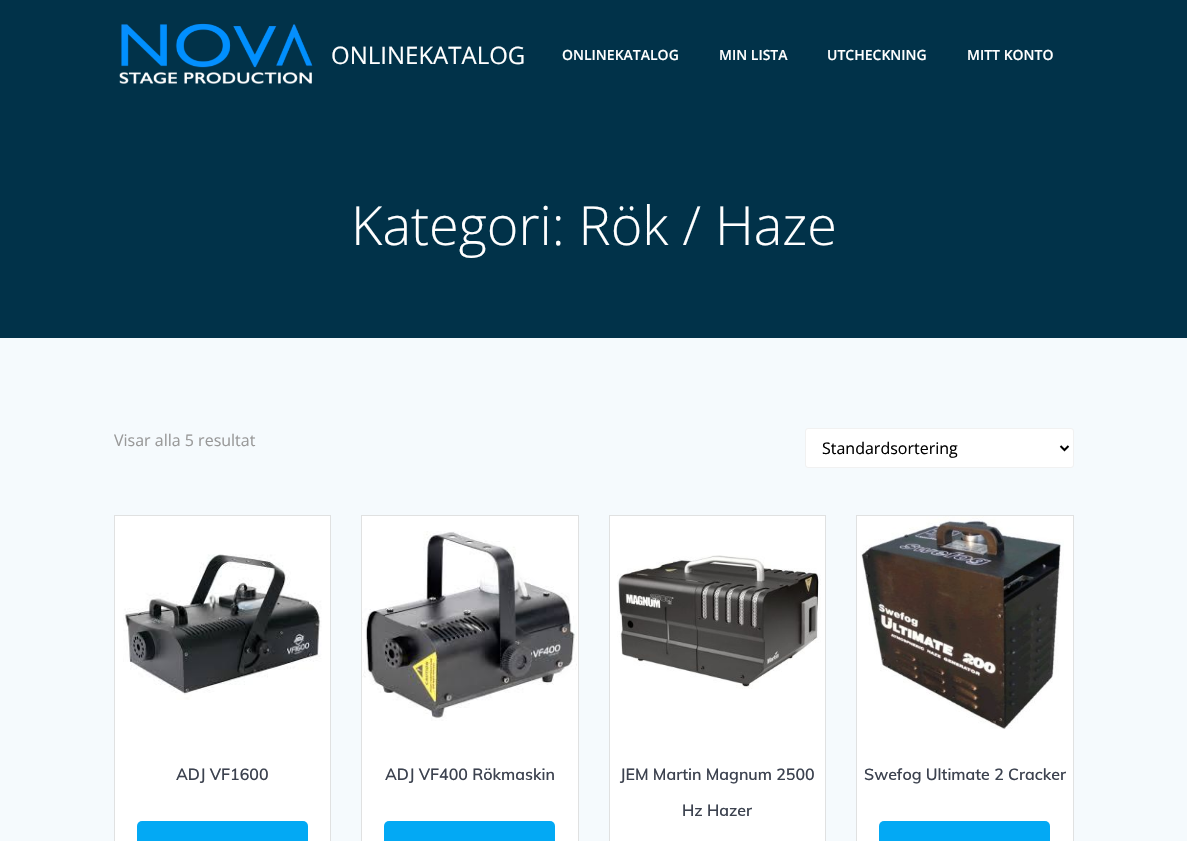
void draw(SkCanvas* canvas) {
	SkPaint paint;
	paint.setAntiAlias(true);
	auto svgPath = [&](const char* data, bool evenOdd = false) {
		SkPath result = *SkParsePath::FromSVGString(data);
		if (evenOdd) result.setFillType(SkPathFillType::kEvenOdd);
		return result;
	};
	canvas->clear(0xfff5fafd);
	paint.setColor(0xff013249);
	canvas->drawRect(SkRect::MakeXYWH(0, 0, 1187, 338), paint);
	canvas->drawImageRect(SkImages::DeferredFromEncodedData(SkData::MakeFromFileName("img1.png")), SkRect::MakeXYWH(119, 23, 194, 61), SkSamplingOptions());
	SkFont f1(fontMgr->matchFamilyStyle("Open Sans", SkFontStyle::Normal()), 24);
	f1.setSubpixel(true);
	paint.setColor(0xffffffff);
	canvas->drawString("ONLINEKATALOG", 331, 64, f1, paint);
	SkFont f2(fontMgr->matchFamilyStyle("Open Sans", SkFontStyle(600, SkFontStyle::kNormal_Width, SkFontStyle::kUpright_Slant)), 14);
	f2.setSubpixel(true);
	canvas->drawString("ONLINEKATALOG", 562, 60, f2, paint);
	canvas->drawString("MIN LISTA", 719, 60, f2, paint);
	canvas->drawString("UTCHECKNING", 827, 60, f2, paint);
	canvas->drawString("MITT KONTO", 967, 60, f2, paint);
	SkFont f3(fontMgr->matchFamilyStyle("Open Sans", SkFontStyle(300, SkFontStyle::kNormal_Width, SkFontStyle::kUpright_Slant)), 54);
	f3.setSubpixel(true);
	canvas->drawString("Kategori: Rök / Haze", 351, 245, f3, paint);
	SkFont f4(fontMgr->matchFamilyStyle("Open Sans", SkFontStyle::Normal()), 16);
	f4.setSubpixel(true);
	paint.setColor(0xff999999);
	canvas->drawString("Visar alla 5 resultat", 114, 446, f4, paint);
	paint.setColor(0xffffffff);
	canvas->drawRoundRect(SkRect::MakeXYWH(805.5, 428.5, 268, 39), 2.5, 2.5, paint);
	paint.setStroke(true);
	paint.setStrokeWidth(1);
	paint.setColor(0xfff1f1f1);
	canvas->drawRoundRect(SkRect::MakeXYWH(805.5, 428.5, 268, 39), 2.5, 2.5, paint);
	paint.setStrokeWidth(2);
	paint.setColor(0xff000000);
	canvas->drawPath(svgPath("M1060.5 446L1064.5 450L1068.5 446"), paint);
	paint.setStroke(false);
	canvas->drawString("Standardsortering", 822, 454, f4, paint);
	paint.setColor(0xffffffff);
	canvas->drawRect(SkRect::MakeXYWH(114.5, 515.5, 216, 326), paint);
	paint.setStroke(true);
	paint.setStrokeWidth(1);
	paint.setColor(0xffe0e1e1);
	canvas->drawRect(SkRect::MakeXYWH(114.5, 515.5, 216, 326), paint);
	canvas->drawImageRect(SkImages::DeferredFromEncodedData(SkData::MakeFromFileName("img2.png")), SkRect::MakeXYWH(123, 554, 199, 146), SkSamplingOptions());
	SkFont f5(fontMgr->matchFamilyStyle("Muli", SkFontStyle(600, SkFontStyle::kNormal_Width, SkFontStyle::kUpright_Slant)), 16);
	f5.setSubpixel(true);
	paint.setStroke(false);
	paint.setColor(0xff3c424f);
	canvas->drawString("ADJ VF1600", 176, 780, f5, paint);
	paint.setColor(0xff03a9f4);
	canvas->drawRoundRect(SkRect::MakeXYWH(137, 821, 171, 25), 5, 5, paint);
	paint.setColor(0xffffffff);
	canvas->drawRect(SkRect::MakeXYWH(361.5, 515.5, 217, 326), paint);
	paint.setStroke(true);
	paint.setColor(0xffe0e1e1);
	canvas->drawRect(SkRect::MakeXYWH(361.5, 515.5, 217, 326), paint);
	canvas->drawImageRect(SkImages::DeferredFromEncodedData(SkData::MakeFromFileName("img3.png")), SkRect::MakeXYWH(362, 531, 215, 190), SkSamplingOptions());
	paint.setStroke(false);
	paint.setColor(0xff3c424f);
	canvas->drawString("ADJ VF400 Rökmaskin", 385, 780, f5, paint);
	paint.setColor(0xff03a9f4);
	canvas->drawRoundRect(SkRect::MakeXYWH(384, 821, 171, 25), 5, 5, paint);
	paint.setColor(0xffffffff);
	canvas->drawRect(SkRect::MakeXYWH(609.5, 515.5, 216, 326), paint);
	paint.setStroke(true);
	paint.setColor(0xffe0e1e1);
	canvas->drawRect(SkRect::MakeXYWH(609.5, 515.5, 216, 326), paint);
	canvas->drawImageRect(SkImages::DeferredFromEncodedData(SkData::MakeFromFileName("img4.png")), SkRect::MakeXYWH(617, 555, 204, 134), SkSamplingOptions());
	paint.setStroke(false);
	paint.setColor(0xff3c424f);
	canvas->drawString("JEM Martin Magnum 2500", 620, 780, f5, paint);
	canvas->drawString("Hz Hazer", 682, 816, f5, paint);
	paint.setColor(0xffffffff);
	canvas->drawRect(SkRect::MakeXYWH(856.5, 515.5, 217, 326), paint);
	paint.setStroke(true);
	paint.setColor(0xffe0e1e1);
	canvas->drawRect(SkRect::MakeXYWH(856.5, 515.5, 217, 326), paint);
	canvas->drawImageRect(SkImages::DeferredFromEncodedData(SkData::MakeFromFileName("img5.png")), SkRect::MakeXYWH(860, 516, 204, 213), SkSamplingOptions());
	paint.setStroke(false);
	paint.setColor(0xff3c424f);
	canvas->drawString("Swefog Ultimate 2 Cracker", 864, 780, f5, paint);
	paint.setColor(0xff03a9f4);
	canvas->drawRoundRect(SkRect::MakeXYWH(879, 821, 171, 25), 5, 5, paint);
}
